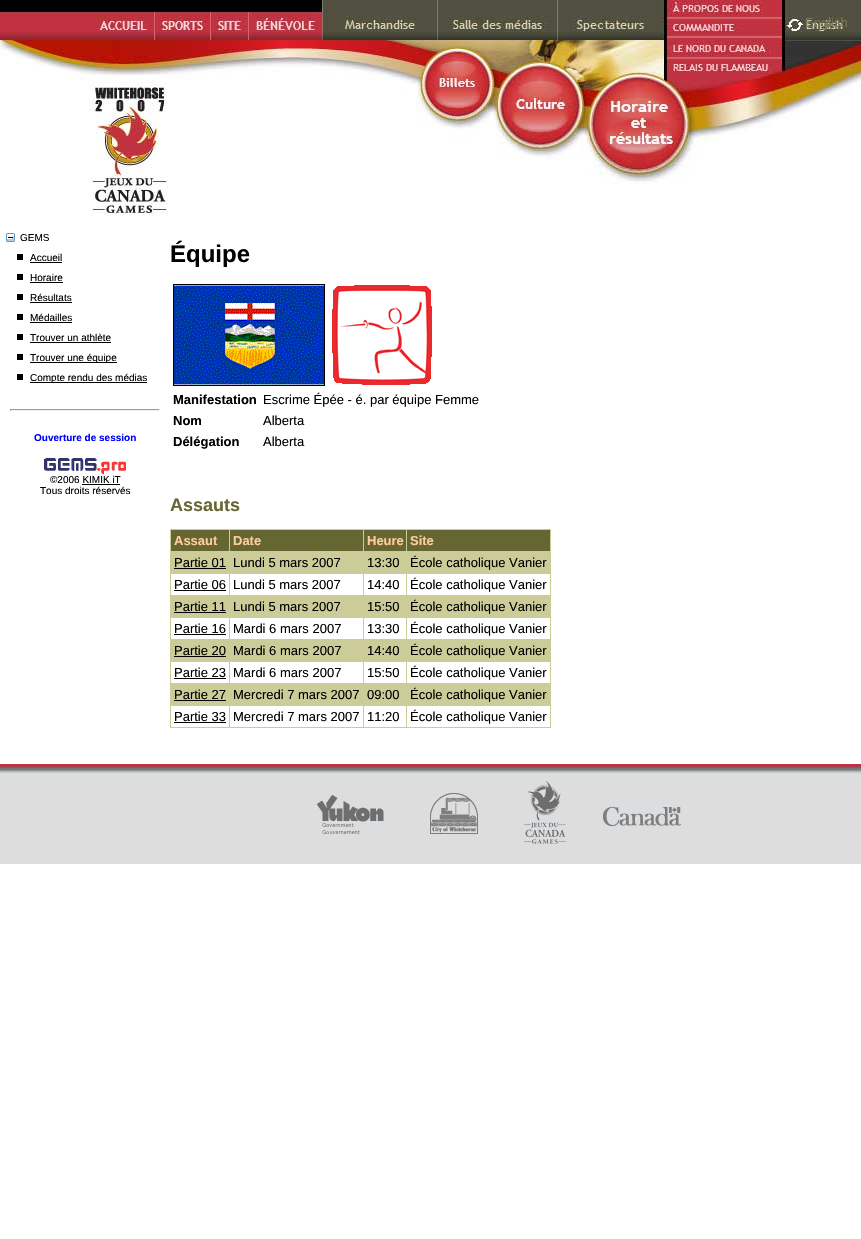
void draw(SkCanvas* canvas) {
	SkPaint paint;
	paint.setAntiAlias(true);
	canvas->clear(0xffffffff);
	canvas->drawImageRect(SkImages::DeferredFromEncodedData(SkData::MakeFromFileName("img1.png")), SkRect::MakeXYWH(0, 0, 500, 216), SkSamplingOptions());
	canvas->drawImageRect(SkImages::DeferredFromEncodedData(SkData::MakeFromFileName("img2.png")), SkRect::MakeXYWH(500, 0, 361, 184), SkSamplingOptions());
	SkFont f1(fontMgr->matchFamilyStyle("Liberation Sans", SkFontStyle::Normal()), 13);
	f1.setSubpixel(true);
	paint.setColor(0xff78765d);
	canvas->drawString("English", 805, 27, f1, paint);
	canvas->drawImageRect(SkImages::DeferredFromEncodedData(SkData::MakeFromFileName("img3.png")), SkRect::MakeXYWH(6, 233, 9, 9), SkSamplingOptions());
	SkFont f2(fontMgr->matchFamilyStyle("Liberation Sans", SkFontStyle::Normal()), 10);
	f2.setSubpixel(true);
	paint.setColor(0xff000000);
	canvas->drawString("GEMS", 20, 241, f2, paint);
	canvas->drawRect(SkRect::MakeXYWH(17, 254, 6, 6), paint);
	canvas->drawString("Accueil", 30, 261, f2, paint);
	canvas->drawRect(SkRect::MakeXYWH(30, 262, 32, 1), paint);
	canvas->drawRect(SkRect::MakeXYWH(17, 274, 6, 6), paint);
	canvas->drawString("Horaire", 30, 281, f2, paint);
	canvas->drawRect(SkRect::MakeXYWH(30, 282, 33, 1), paint);
	canvas->drawRect(SkRect::MakeXYWH(17, 294, 6, 6), paint);
	canvas->drawString("Résultats", 30, 301, f2, paint);
	canvas->drawRect(SkRect::MakeXYWH(30, 302, 42, 1), paint);
	canvas->drawRect(SkRect::MakeXYWH(17, 314, 6, 6), paint);
	canvas->drawString("Médailles", 30, 321, f2, paint);
	canvas->drawRect(SkRect::MakeXYWH(30, 322, 42, 1), paint);
	canvas->drawRect(SkRect::MakeXYWH(17, 334, 6, 6), paint);
	canvas->drawString("Trouver un athlète", 30, 341, f2, paint);
	canvas->drawRect(SkRect::MakeXYWH(30, 342, 81, 1), paint);
	canvas->drawRect(SkRect::MakeXYWH(17, 354, 6, 6), paint);
	canvas->drawRect(SkRect::MakeXYWH(30, 362, 87, 1), paint);
	canvas->drawString("Trouver une équipe", 30, 361, f2, paint);
	canvas->drawRect(SkRect::MakeXYWH(17, 374, 6, 6), paint);
	canvas->drawRect(SkRect::MakeXYWH(30, 382, 117, 1), paint);
	canvas->drawString("Compte rendu des médias", 30, 381, f2, paint);
	paint.setColor(0xff9f9f9f);
	canvas->drawRect(SkRect::MakeXYWH(10, 409, 150, 1), paint);
	paint.setColor(0xffeeeeee);
	canvas->drawRect(SkRect::MakeXYWH(159, 409, 1, 2), paint);
	canvas->drawRect(SkRect::MakeXYWH(10, 410, 150, 1), paint);
	paint.setColor(0xff9f9f9f);
	canvas->drawRect(SkRect::MakeXYWH(10, 409, 1, 2), paint);
	SkFont f3(fontMgr->matchFamilyStyle("Liberation Sans", SkFontStyle::Bold()), 10);
	f3.setSubpixel(true);
	paint.setColor(0xff0000ff);
	canvas->drawString("Ouverture de session", 34, 441, f3, paint);
	canvas->drawImageRect(SkImages::DeferredFromEncodedData(SkData::MakeFromFileName("img4.png")), SkRect::MakeXYWH(44, 458, 82, 16), SkSamplingOptions());
	paint.setColor(0xff000000);
	canvas->drawString("©2006 KIMIK iT", 50, 483, f2, paint);
	canvas->drawRect(SkRect::MakeXYWH(82, 484, 38, 1), paint);
	canvas->drawString("Tous droits réservés", 40, 494, f2, paint);
	SkFont f4(fontMgr->matchFamilyStyle("Liberation Sans", SkFontStyle::Bold()), 24);
	f4.setSubpixel(true);
	canvas->drawString("Équipe", 170, 262, f4, paint);
	paint.setStroke(true);
	paint.setStrokeWidth(1);
	canvas->drawRect(SkRect::MakeXYWH(173.5, 284.5, 151, 101), paint);
	canvas->drawImageRect(SkImages::DeferredFromEncodedData(SkData::MakeFromFileName("img5.png")), SkRect::MakeXYWH(174, 285, 150, 100), SkSamplingOptions());
	canvas->drawImageRect(SkImages::DeferredFromEncodedData(SkData::MakeFromFileName("img6.png")), SkRect::MakeXYWH(332, 285, 100, 100), SkSamplingOptions());
	SkFont f5(fontMgr->matchFamilyStyle("Liberation Sans", SkFontStyle::Bold()), 13);
	f5.setSubpixel(true);
	paint.setStroke(false);
	canvas->drawString("Manifestation", 173, 404, f5, paint);
	canvas->drawString("Escrime Épée - é. par équipe Femme", 263, 404, f1, paint);
	canvas->drawString("Nom", 173, 425, f5, paint);
	canvas->drawString("Alberta", 263, 425, f1, paint);
	canvas->drawString("Délégation", 173, 446, f5, paint);
	canvas->drawString("Alberta", 263, 446, f1, paint);
	SkFont f6(fontMgr->matchFamilyStyle("Liberation Sans", SkFontStyle::Bold()), 18);
	f6.setSubpixel(true);
	paint.setColor(0xff666633);
	canvas->drawString("Assauts", 170, 511, f6, paint);
	canvas->drawRect(SkRect::MakeXYWH(171, 530, 379, 21), paint);
	paint.setColor(0xffcccc99);
	canvas->drawRect(SkRect::MakeXYWH(406, 529, 145, 1), paint);
	canvas->drawRect(SkRect::MakeXYWH(170, 551, 381, 1), paint);
	canvas->drawRect(SkRect::MakeXYWH(406, 529, 1, 23), paint);
	canvas->drawRect(SkRect::MakeXYWH(363, 529, 44, 1), paint);
	canvas->drawRect(SkRect::MakeXYWH(363, 529, 1, 23), paint);
	canvas->drawRect(SkRect::MakeXYWH(229, 529, 135, 1), paint);
	canvas->drawRect(SkRect::MakeXYWH(229, 529, 1, 23), paint);
	canvas->drawRect(SkRect::MakeXYWH(170, 529, 60, 1), paint);
	canvas->drawRect(SkRect::MakeXYWH(170, 595, 381, 1), paint);
	canvas->drawRect(SkRect::MakeXYWH(170, 639, 381, 1), paint);
	canvas->drawRect(SkRect::MakeXYWH(170, 683, 381, 1), paint);
	canvas->drawRect(SkRect::MakeXYWH(170, 705, 1, 1), paint);
	canvas->drawRect(SkRect::MakeXYWH(550, 705, 1, 23), paint);
	canvas->drawRect(SkRect::MakeXYWH(406, 727, 145, 1), paint);
	canvas->drawRect(SkRect::MakeXYWH(171, 684, 379, 22), paint);
	canvas->drawRect(SkRect::MakeXYWH(406, 705, 1, 23), paint);
	canvas->drawRect(SkRect::MakeXYWH(363, 727, 44, 1), paint);
	canvas->drawRect(SkRect::MakeXYWH(363, 705, 1, 23), paint);
	canvas->drawRect(SkRect::MakeXYWH(229, 727, 135, 1), paint);
	canvas->drawRect(SkRect::MakeXYWH(229, 705, 1, 23), paint);
	canvas->drawRect(SkRect::MakeXYWH(170, 727, 60, 1), paint);
	canvas->drawRect(SkRect::MakeXYWH(170, 705, 1, 23), paint);
	canvas->drawRect(SkRect::MakeXYWH(170, 683, 1, 23), paint);
	canvas->drawRect(SkRect::MakeXYWH(170, 661, 1, 23), paint);
	canvas->drawRect(SkRect::MakeXYWH(170, 639, 1, 23), paint);
	canvas->drawRect(SkRect::MakeXYWH(170, 617, 1, 23), paint);
	canvas->drawRect(SkRect::MakeXYWH(170, 595, 1, 23), paint);
	canvas->drawRect(SkRect::MakeXYWH(170, 573, 1, 23), paint);
	canvas->drawRect(SkRect::MakeXYWH(170, 551, 1, 23), paint);
	canvas->drawRect(SkRect::MakeXYWH(170, 529, 1, 23), paint);
	paint.setColor(0xffffcc99);
	canvas->drawString("Assaut", 174, 545, f5, paint);
	canvas->drawString("Date", 233, 545, f5, paint);
	canvas->drawString("Heure", 367, 545, f5, paint);
	paint.setColor(0xffcccc99);
	canvas->drawRect(SkRect::MakeXYWH(550, 683, 1, 23), paint);
	canvas->drawRect(SkRect::MakeXYWH(550, 661, 1, 23), paint);
	canvas->drawRect(SkRect::MakeXYWH(550, 639, 1, 23), paint);
	canvas->drawRect(SkRect::MakeXYWH(550, 617, 1, 23), paint);
	canvas->drawRect(SkRect::MakeXYWH(550, 595, 1, 23), paint);
	canvas->drawRect(SkRect::MakeXYWH(550, 573, 1, 23), paint);
	canvas->drawRect(SkRect::MakeXYWH(550, 551, 1, 23), paint);
	canvas->drawRect(SkRect::MakeXYWH(550, 529, 1, 23), paint);
	paint.setColor(0xffffcc99);
	canvas->drawString("Site", 410, 545, f5, paint);
	paint.setColor(0xffcccc99);
	canvas->drawRect(SkRect::MakeXYWH(171, 552, 379, 22), paint);
	paint.setColor(0xff000000);
	canvas->drawString("Partie 01", 174, 567, f1, paint);
	canvas->drawRect(SkRect::MakeXYWH(174, 568, 52, 1), paint);
	canvas->drawString("Lundi 5 mars 2007", 233, 567, f1, paint);
	canvas->drawString("13:30", 367, 567, f1, paint);
	canvas->drawString("École catholique Vanier", 410, 567, f1, paint);
	canvas->drawString("Partie 06", 174, 589, f1, paint);
	canvas->drawRect(SkRect::MakeXYWH(174, 590, 52, 1), paint);
	paint.setColor(0xffcccc99);
	canvas->drawRect(SkRect::MakeXYWH(229, 573, 1, 23), paint);
	paint.setColor(0xff000000);
	canvas->drawString("Lundi 5 mars 2007", 233, 589, f1, paint);
	paint.setColor(0xffcccc99);
	canvas->drawRect(SkRect::MakeXYWH(363, 573, 1, 23), paint);
	paint.setColor(0xff000000);
	canvas->drawString("14:40", 367, 589, f1, paint);
	paint.setColor(0xffcccc99);
	canvas->drawRect(SkRect::MakeXYWH(406, 573, 1, 23), paint);
	paint.setColor(0xff000000);
	canvas->drawString("École catholique Vanier", 410, 589, f1, paint);
	paint.setColor(0xffcccc99);
	canvas->drawRect(SkRect::MakeXYWH(171, 596, 379, 22), paint);
	paint.setColor(0xff000000);
	canvas->drawString("Partie 11", 174, 611, f1, paint);
	canvas->drawRect(SkRect::MakeXYWH(174, 612, 52, 1), paint);
	canvas->drawString("Lundi 5 mars 2007", 233, 611, f1, paint);
	canvas->drawString("15:50", 367, 611, f1, paint);
	canvas->drawString("École catholique Vanier", 410, 611, f1, paint);
	canvas->drawString("Partie 16", 174, 633, f1, paint);
	canvas->drawRect(SkRect::MakeXYWH(174, 634, 52, 1), paint);
	paint.setColor(0xffcccc99);
	canvas->drawRect(SkRect::MakeXYWH(229, 617, 1, 23), paint);
	paint.setColor(0xff000000);
	canvas->drawString("Mardi 6 mars 2007", 233, 633, f1, paint);
	paint.setColor(0xffcccc99);
	canvas->drawRect(SkRect::MakeXYWH(363, 617, 1, 23), paint);
	paint.setColor(0xff000000);
	canvas->drawString("13:30", 367, 633, f1, paint);
	paint.setColor(0xffcccc99);
	canvas->drawRect(SkRect::MakeXYWH(406, 617, 1, 23), paint);
	paint.setColor(0xff000000);
	canvas->drawString("École catholique Vanier", 410, 633, f1, paint);
	paint.setColor(0xffcccc99);
	canvas->drawRect(SkRect::MakeXYWH(171, 640, 379, 22), paint);
	paint.setColor(0xff000000);
	canvas->drawString("Partie 20", 174, 655, f1, paint);
	canvas->drawRect(SkRect::MakeXYWH(174, 656, 52, 1), paint);
	canvas->drawString("Mardi 6 mars 2007", 233, 655, f1, paint);
	canvas->drawString("14:40", 367, 655, f1, paint);
	canvas->drawString("École catholique Vanier", 410, 655, f1, paint);
	canvas->drawString("Partie 23", 174, 677, f1, paint);
	canvas->drawRect(SkRect::MakeXYWH(174, 678, 52, 1), paint);
	paint.setColor(0xffcccc99);
	canvas->drawRect(SkRect::MakeXYWH(229, 661, 1, 23), paint);
	paint.setColor(0xff000000);
	canvas->drawString("Mardi 6 mars 2007", 233, 677, f1, paint);
	paint.setColor(0xffcccc99);
	canvas->drawRect(SkRect::MakeXYWH(363, 661, 1, 23), paint);
	paint.setColor(0xff000000);
	canvas->drawString("15:50", 367, 677, f1, paint);
	paint.setColor(0xffcccc99);
	canvas->drawRect(SkRect::MakeXYWH(406, 661, 1, 23), paint);
	paint.setColor(0xff000000);
	canvas->drawString("École catholique Vanier", 410, 677, f1, paint);
	canvas->drawString("Partie 27", 174, 699, f1, paint);
	canvas->drawRect(SkRect::MakeXYWH(174, 700, 52, 1), paint);
	canvas->drawString("Mercredi 7 mars 2007", 233, 699, f1, paint);
	canvas->drawString("09:00", 367, 699, f1, paint);
	canvas->drawString("École catholique Vanier", 410, 699, f1, paint);
	canvas->drawString("Partie 33", 174, 721, f1, paint);
	canvas->drawRect(SkRect::MakeXYWH(174, 722, 52, 1), paint);
	canvas->drawString("Mercredi 7 mars 2007", 233, 721, f1, paint);
	canvas->drawString("11:20", 367, 721, f1, paint);
	canvas->drawString("École catholique Vanier", 410, 721, f1, paint);
	canvas->drawImageRect(SkImages::DeferredFromEncodedData(SkData::MakeFromFileName("img7.png")), SkRect::MakeXYWH(0, 764, 861, 100), SkSamplingOptions());
	canvas->drawImageRect(SkImages::DeferredFromEncodedData(SkData::MakeFromFileName("img8.png")), SkRect::MakeXYWH(316, 781, 365, 63), SkSamplingOptions());
}
